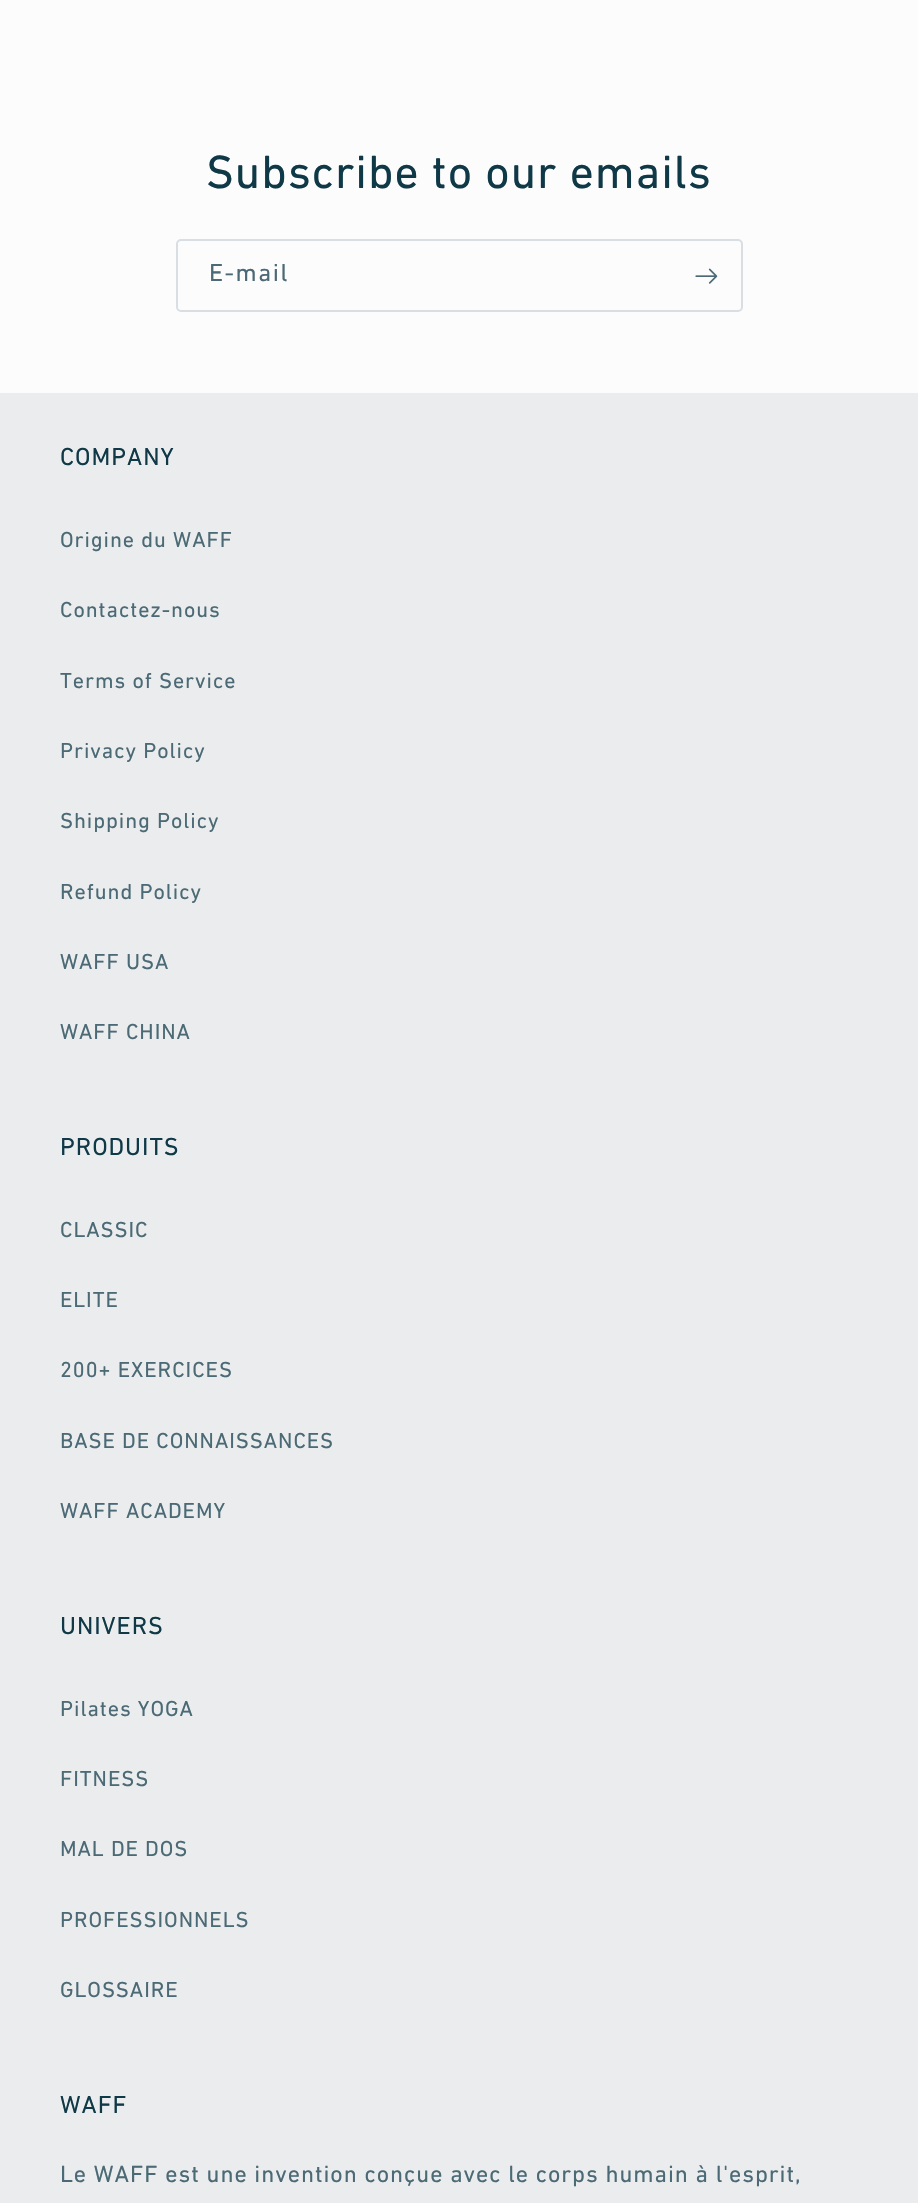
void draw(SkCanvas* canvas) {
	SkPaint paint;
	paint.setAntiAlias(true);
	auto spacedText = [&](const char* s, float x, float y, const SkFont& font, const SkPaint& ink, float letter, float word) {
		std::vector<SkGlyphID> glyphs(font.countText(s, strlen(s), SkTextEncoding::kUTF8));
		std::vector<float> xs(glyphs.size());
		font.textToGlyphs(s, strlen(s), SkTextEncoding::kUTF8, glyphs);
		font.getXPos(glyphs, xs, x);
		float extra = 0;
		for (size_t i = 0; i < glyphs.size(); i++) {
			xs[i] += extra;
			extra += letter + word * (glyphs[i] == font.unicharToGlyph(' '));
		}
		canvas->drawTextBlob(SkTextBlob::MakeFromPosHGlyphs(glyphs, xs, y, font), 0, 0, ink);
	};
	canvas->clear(0xfffcfcfc);
	SkFont f1(fontMgr->matchFamilyStyle("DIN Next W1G", SkFontStyle::Normal()), 47.25);
	f1.setSubpixel(true);
	paint.setColor(0xff103948);
	spacedText("Subscribe to our emails", 206, 188, f1, paint, 0.95, 0);
	paint.setStroke(true);
	paint.setStrokeWidth(2);
	paint.setColor(0x26103948);
	canvas->drawRoundRect(SkRect::MakeXYWH(177, 240, 565, 71), 4, 4, paint);
	SkFont f2(fontMgr->matchFamilyStyle("DIN Next W1G", SkFontStyle::Normal()), 25);
	f2.setSubpixel(true);
	paint.setStroke(false);
	paint.setColor(0xff4b6a75);
	spacedText("E-mail", 209, 281, f2, paint, 1.5, 0);
	canvas->drawImageRect(SkImages::DeferredFromEncodedData(SkData::MakeFromFileName("img1.png")), SkRect::MakeXYWH(695, 268, 23, 16), SkSamplingOptions());
	paint.setColor(0xffebeced);
	canvas->drawRect(SkRect::MakeXYWH(0, 393, 918, 1810), paint);
	paint.setColor(0xff103948);
	spacedText("COMPANY", 60, 465, f2, paint, 0.95, 0);
	SkFont f3(fontMgr->matchFamilyStyle("DIN Next W1G", SkFontStyle::Normal()), 22);
	f3.setSubpixel(true);
	paint.setColor(0xff4b6a75);
	spacedText("Origine du WAFF", 60, 547, f3, paint, 0.95, 0);
	spacedText("Contactez-nous", 60, 617, f3, paint, 0.95, 0);
	spacedText("Terms of Service", 60, 688, f3, paint, 0.95, 0);
	spacedText("Privacy Policy", 60, 758, f3, paint, 0.95, 0);
	spacedText("Shipping Policy", 60, 828, f3, paint, 0.95, 0);
	spacedText("Refund Policy", 60, 899, f3, paint, 0.95, 0);
	spacedText("WAFF USA", 60, 969, f3, paint, 0.95, 0);
	spacedText("WAFF CHINA", 60, 1039, f3, paint, 0.95, 0);
	paint.setColor(0xff103948);
	spacedText("PRODUITS", 60, 1155, f2, paint, 0.95, 0);
	paint.setColor(0xff4b6a75);
	spacedText("CLASSIC", 60, 1237, f3, paint, 0.95, 0);
	spacedText("ELITE", 60, 1307, f3, paint, 0.95, 0);
	spacedText("200+ EXERCICES", 60, 1377, f3, paint, 0.95, 0);
	spacedText("BASE DE CONNAISSANCES", 60, 1448, f3, paint, 0.95, 0);
	spacedText("WAFF ACADEMY", 60, 1518, f3, paint, 0.95, 0);
	paint.setColor(0xff103948);
	spacedText("UNIVERS", 60, 1634, f2, paint, 0.95, 0);
	paint.setColor(0xff4b6a75);
	spacedText("Pilates YOGA", 60, 1716, f3, paint, 0.95, 0);
	spacedText("FITNESS", 60, 1786, f3, paint, 0.95, 0);
	spacedText("MAL DE DOS", 60, 1856, f3, paint, 0.95, 0);
	spacedText("PROFESSIONNELS", 60, 1927, f3, paint, 0.95, 0);
	spacedText("GLOSSAIRE", 60, 1997, f3, paint, 0.95, 0);
	paint.setColor(0xff103948);
	spacedText("WAFF", 60, 2113, f2, paint, 0.95, 0);
	SkFont f4(fontMgr->matchFamilyStyle("DIN Next W1G", SkFontStyle::Normal()), 24);
	f4.setSubpixel(true);
	paint.setColor(0xff4b6a75);
	spacedText("Le WAFF est une invention conçue avec le corps humain à l'esprit,", 60, 2182, f4, paint, 0.95, 0);
}
